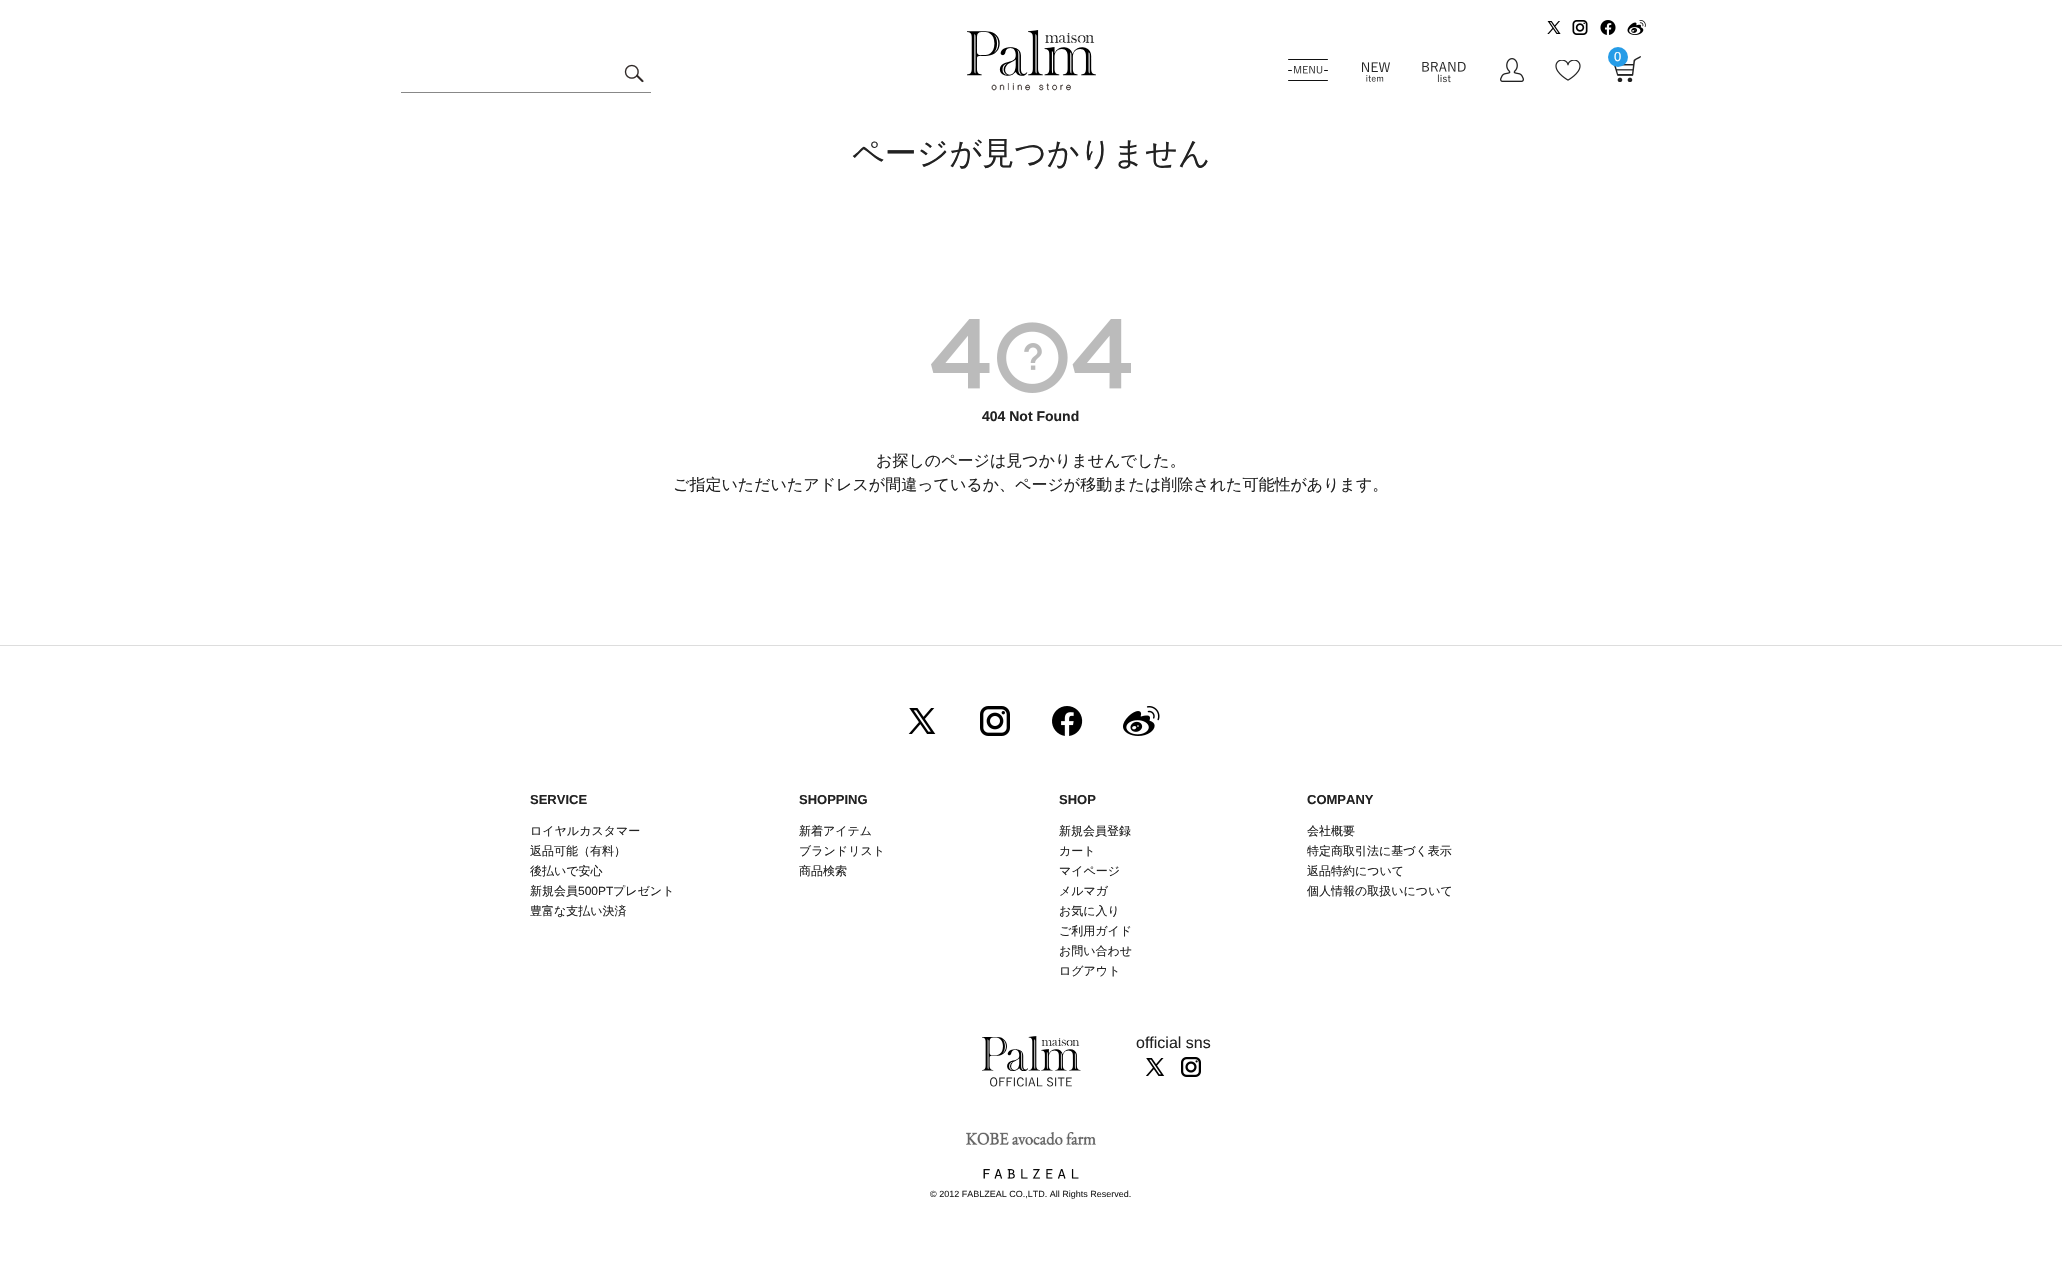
void draw(SkCanvas* canvas) {
	SkPaint paint;
	paint.setAntiAlias(true);
	canvas->clear(0xffffffff);
	canvas->drawImageRect(SkImages::DeferredFromEncodedData(SkData::MakeFromFileName("img1.png")), SkRect::MakeXYWH(967, 30, 129, 61), SkSamplingOptions());
	canvas->drawImageRect(SkImages::DeferredFromEncodedData(SkData::MakeFromFileName("img2.png")), SkRect::MakeXYWH(1547, 21, 14, 13), SkSamplingOptions());
	canvas->drawImageRect(SkImages::DeferredFromEncodedData(SkData::MakeFromFileName("img3.png")), SkRect::MakeXYWH(1572, 20, 16, 15), SkSamplingOptions());
	canvas->drawImageRect(SkImages::DeferredFromEncodedData(SkData::MakeFromFileName("img4.png")), SkRect::MakeXYWH(1600, 20, 16, 15), SkSamplingOptions());
	canvas->drawImageRect(SkImages::DeferredFromEncodedData(SkData::MakeFromFileName("img5.png")), SkRect::MakeXYWH(1627, 20, 19, 15), SkSamplingOptions());
	canvas->drawImageRect(SkImages::DeferredFromEncodedData(SkData::MakeFromFileName("img6.png")), SkRect::MakeXYWH(1614, 56, 27, 26), SkSamplingOptions());
	paint.setColor(0xff269ce7);
	canvas->drawCircle(1618, 57, 10, paint);
	SkFont f1(fontMgr->matchFamilyStyle("Liberation Sans", SkFontStyle::Normal()), 13);
	f1.setSubpixel(true);
	paint.setColor(0xffffffff);
	canvas->drawString("0", 1614, 61, f1, paint);
	canvas->drawImageRect(SkImages::DeferredFromEncodedData(SkData::MakeFromFileName("img7.png")), SkRect::MakeXYWH(1288, 59, 40, 22), SkSamplingOptions());
	canvas->drawImageRect(SkImages::DeferredFromEncodedData(SkData::MakeFromFileName("img8.png")), SkRect::MakeXYWH(1362, 62, 28, 20), SkSamplingOptions());
	canvas->drawImageRect(SkImages::DeferredFromEncodedData(SkData::MakeFromFileName("img9.png")), SkRect::MakeXYWH(1422, 62, 44, 21), SkSamplingOptions());
	canvas->drawImageRect(SkImages::DeferredFromEncodedData(SkData::MakeFromFileName("img10.png")), SkRect::MakeXYWH(1500, 58, 24, 24), SkSamplingOptions());
	canvas->drawImageRect(SkImages::DeferredFromEncodedData(SkData::MakeFromFileName("img11.png")), SkRect::MakeXYWH(1555, 60, 26, 21), SkSamplingOptions());
	paint.setColor(0xff888888);
	canvas->drawRect(SkRect::MakeXYWH(401, 92, 250, 1), paint);
	canvas->drawImageRect(SkImages::DeferredFromEncodedData(SkData::MakeFromFileName("img12.png")), SkRect::MakeXYWH(624, 64, 20, 19), SkSamplingOptions());
	SkFont f2(fontMgr->matchFamilyStyle("WenQuanYi Zen Hei", SkFontStyle(500, SkFontStyle::kNormal_Width, SkFontStyle::kUpright_Slant)), 32);
	f2.setSubpixel(true);
	paint.setColor(0xff222222);
	canvas->drawString("ページが見つかりません", 852, 164, f2, paint);
	canvas->drawImageRect(SkImages::DeferredFromEncodedData(SkData::MakeFromFileName("img13.png")), SkRect::MakeXYWH(931, 319, 200, 74), SkSamplingOptions());
	SkFont f3(fontMgr->matchFamilyStyle("Liberation Sans", SkFontStyle::Bold()), 14);
	f3.setSubpixel(true);
	canvas->drawString("404 Not Found", 982, 421, f3, paint);
	SkFont f4(fontMgr->matchFamilyStyle("WenQuanYi Zen Hei", SkFontStyle(500, SkFontStyle::kNormal_Width, SkFontStyle::kUpright_Slant)), 16);
	f4.setSubpixel(true);
	canvas->drawString("お探しのページは見つかりませんでした。", 876, 466, f4, paint);
	canvas->drawString("ご指定いただいたアドレスが間違っているか、ページが移動または削除された可能性があります。", 673, 490, f4, paint);
	paint.setColor(0xffdddddd);
	canvas->drawRect(SkRect::MakeXYWH(0, 645, 2062, 1), paint);
	canvas->drawImageRect(SkImages::DeferredFromEncodedData(SkData::MakeFromFileName("img14.png")), SkRect::MakeXYWH(908, 708, 28, 26), SkSamplingOptions());
	canvas->drawImageRect(SkImages::DeferredFromEncodedData(SkData::MakeFromFileName("img15.png")), SkRect::MakeXYWH(980, 706, 30, 30), SkSamplingOptions());
	canvas->drawImageRect(SkImages::DeferredFromEncodedData(SkData::MakeFromFileName("img16.png")), SkRect::MakeXYWH(1052, 706, 31, 30), SkSamplingOptions());
	canvas->drawImageRect(SkImages::DeferredFromEncodedData(SkData::MakeFromFileName("img17.png")), SkRect::MakeXYWH(1123, 706, 37, 30), SkSamplingOptions());
	SkFont f5(fontMgr->matchFamilyStyle("Liberation Sans", SkFontStyle::Bold()), 13);
	f5.setSubpixel(true);
	paint.setColor(0xff222222);
	canvas->drawString("SERVICE", 530, 804, f5, paint);
	SkFont f6(fontMgr->matchFamilyStyle("WenQuanYi Zen Hei", SkFontStyle(500, SkFontStyle::kNormal_Width, SkFontStyle::kUpright_Slant)), 12);
	f6.setSubpixel(true);
	canvas->drawString("ロイヤルカスタマー", 530, 835, f6, paint);
	canvas->drawString("返品可能（有料）", 530, 855, f6, paint);
	canvas->drawString("後払いで安心", 530, 875, f6, paint);
	canvas->drawString("新規会員", 530, 895, f6, paint);
	SkFont f7(fontMgr->matchFamilyStyle("Liberation Sans", SkFontStyle::Normal()), 12);
	f7.setSubpixel(true);
	canvas->drawString("500PT", 578, 895, f7, paint);
	canvas->drawString("プレゼント", 613, 895, f6, paint);
	canvas->drawString("豊富な支払い決済", 530, 915, f6, paint);
	canvas->drawString("SHOPPING", 799, 804, f5, paint);
	canvas->drawString("新着アイテム", 799, 835, f6, paint);
	canvas->drawString("ブランドリスト", 799, 855, f6, paint);
	canvas->drawString("商品検索", 799, 875, f6, paint);
	canvas->drawString("SHOP", 1059, 804, f5, paint);
	canvas->drawString("新規会員登録", 1059, 835, f6, paint);
	canvas->drawString("カート", 1059, 855, f6, paint);
	canvas->drawString("マイページ", 1059, 875, f6, paint);
	canvas->drawString("メルマガ", 1059, 895, f6, paint);
	canvas->drawString("お気に入り", 1059, 915, f6, paint);
	canvas->drawString("ご利用ガイド", 1059, 935, f6, paint);
	canvas->drawString("お問い合わせ", 1059, 955, f6, paint);
	canvas->drawString("ログアウト", 1059, 975, f6, paint);
	canvas->drawString("COMPANY", 1307, 804, f5, paint);
	canvas->drawString("会社概要", 1307, 835, f6, paint);
	canvas->drawString("特定商取引法に基づく表示", 1307, 855, f6, paint);
	canvas->drawString("返品特約について", 1307, 875, f6, paint);
	canvas->drawString("個人情報の取扱いについて", 1307, 895, f6, paint);
	canvas->drawImageRect(SkImages::DeferredFromEncodedData(SkData::MakeFromFileName("img18.png")), SkRect::MakeXYWH(982, 1036, 99, 51), SkSamplingOptions());
	SkFont f8(fontMgr->matchFamilyStyle("Liberation Sans", SkFontStyle::Normal()), 16);
	f8.setSubpixel(true);
	canvas->drawString("official sns", 1136, 1048, f8, paint);
	canvas->drawImageRect(SkImages::DeferredFromEncodedData(SkData::MakeFromFileName("img19.png")), SkRect::MakeXYWH(1146, 1058, 19, 18), SkSamplingOptions());
	canvas->drawImageRect(SkImages::DeferredFromEncodedData(SkData::MakeFromFileName("img20.png")), SkRect::MakeXYWH(1181, 1057, 20, 20), SkSamplingOptions());
	canvas->drawImageRect(SkImages::DeferredFromEncodedData(SkData::MakeFromFileName("img21.png")), SkRect::MakeXYWH(966, 1132, 130, 13), SkSamplingOptions());
	canvas->drawImageRect(SkImages::DeferredFromEncodedData(SkData::MakeFromFileName("img22.png")), SkRect::MakeXYWH(983, 1169, 96, 10), SkSamplingOptions());
	SkFont f9(fontMgr->matchFamilyStyle("Liberation Sans", SkFontStyle::Normal()), 9);
	f9.setSubpixel(true);
	canvas->drawString("© 2012 FABLZEAL CO.,LTD. All Rights Reserved.", 930, 1197, f9, paint);
}
